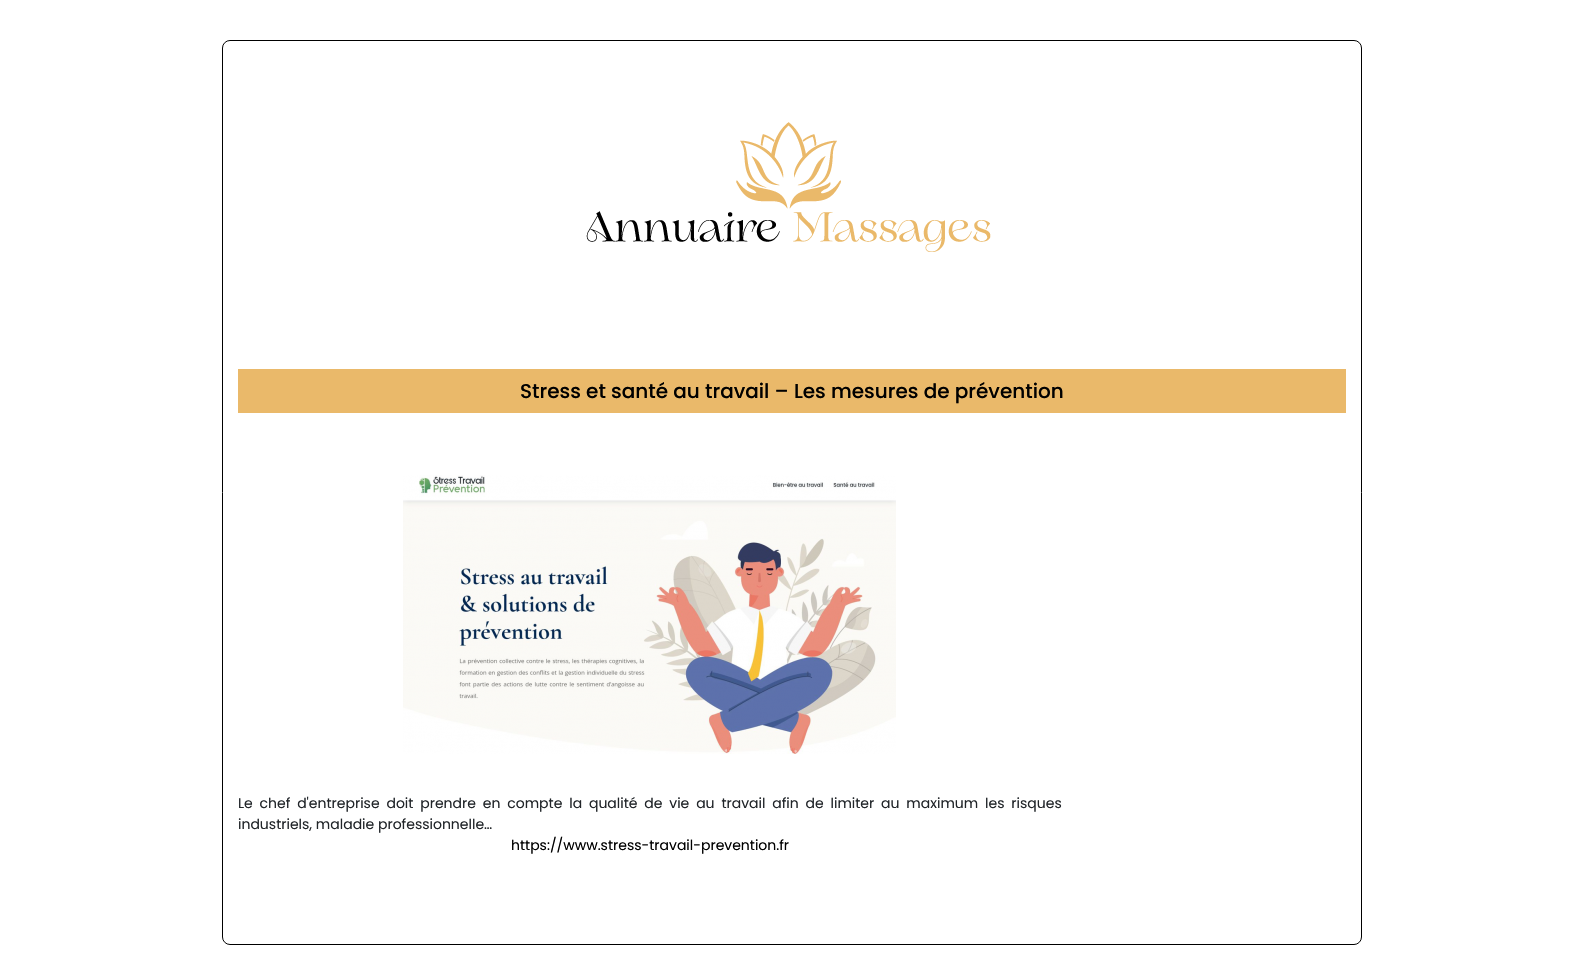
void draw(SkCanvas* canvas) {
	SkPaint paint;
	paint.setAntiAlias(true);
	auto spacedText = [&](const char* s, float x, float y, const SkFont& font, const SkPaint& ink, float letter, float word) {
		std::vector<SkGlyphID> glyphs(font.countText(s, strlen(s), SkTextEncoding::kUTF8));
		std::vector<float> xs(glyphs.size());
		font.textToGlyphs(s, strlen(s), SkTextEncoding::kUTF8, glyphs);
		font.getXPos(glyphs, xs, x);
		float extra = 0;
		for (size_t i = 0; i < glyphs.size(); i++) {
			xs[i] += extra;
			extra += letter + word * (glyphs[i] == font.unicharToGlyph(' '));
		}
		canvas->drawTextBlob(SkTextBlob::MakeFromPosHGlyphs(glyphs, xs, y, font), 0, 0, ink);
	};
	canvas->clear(0xffffffff);
	paint.setStroke(true);
	paint.setStrokeWidth(1);
	paint.setColor(0xff000000);
	canvas->drawRoundRect(SkRect::MakeXYWH(222.5, 40.5, 1139, 904), 7.5, 7.5, paint);
	canvas->drawImageRect(SkImages::DeferredFromEncodedData(SkData::MakeFromFileName("img1.png")), SkRect::MakeXYWH(586, 122, 405, 130), SkSamplingOptions());
	paint.setStroke(false);
	paint.setColor(0xffeab96a);
	canvas->drawRect(SkRect::MakeXYWH(238, 369, 1108, 44), paint);
	SkFont f1(fontMgr->matchFamilyStyle("Poppins", SkFontStyle(500, SkFontStyle::kNormal_Width, SkFontStyle::kUpright_Slant)), 20);
	f1.setSubpixel(true);
	paint.setColor(0xff000000);
	canvas->drawString("Stress et santé au travail – Les mesures de prévention", 520, 398, f1, paint);
	canvas->drawImageRect(SkImages::DeferredFromEncodedData(SkData::MakeFromFileName("img2.png")), SkRect::MakeXYWH(403, 475, 493, 279), SkSamplingOptions());
	SkFont f2(fontMgr->matchFamilyStyle("Poppins", SkFontStyle::Normal()), 14);
	f2.setSubpixel(true);
	paint.setColor(0xff212529);
	spacedText("Le chef d'entreprise doit prendre en compte la qualité de vie au travail afin de limiter au maximum les risques", 238, 808, f2, paint, 0, 3.1);
	canvas->drawString("industriels, maladie professionnelle…", 238, 829, f2, paint);
	paint.setColor(0xff000000);
	canvas->drawString("https://www.stress-travail-prevention.fr", 511, 850, f2, paint);
}
